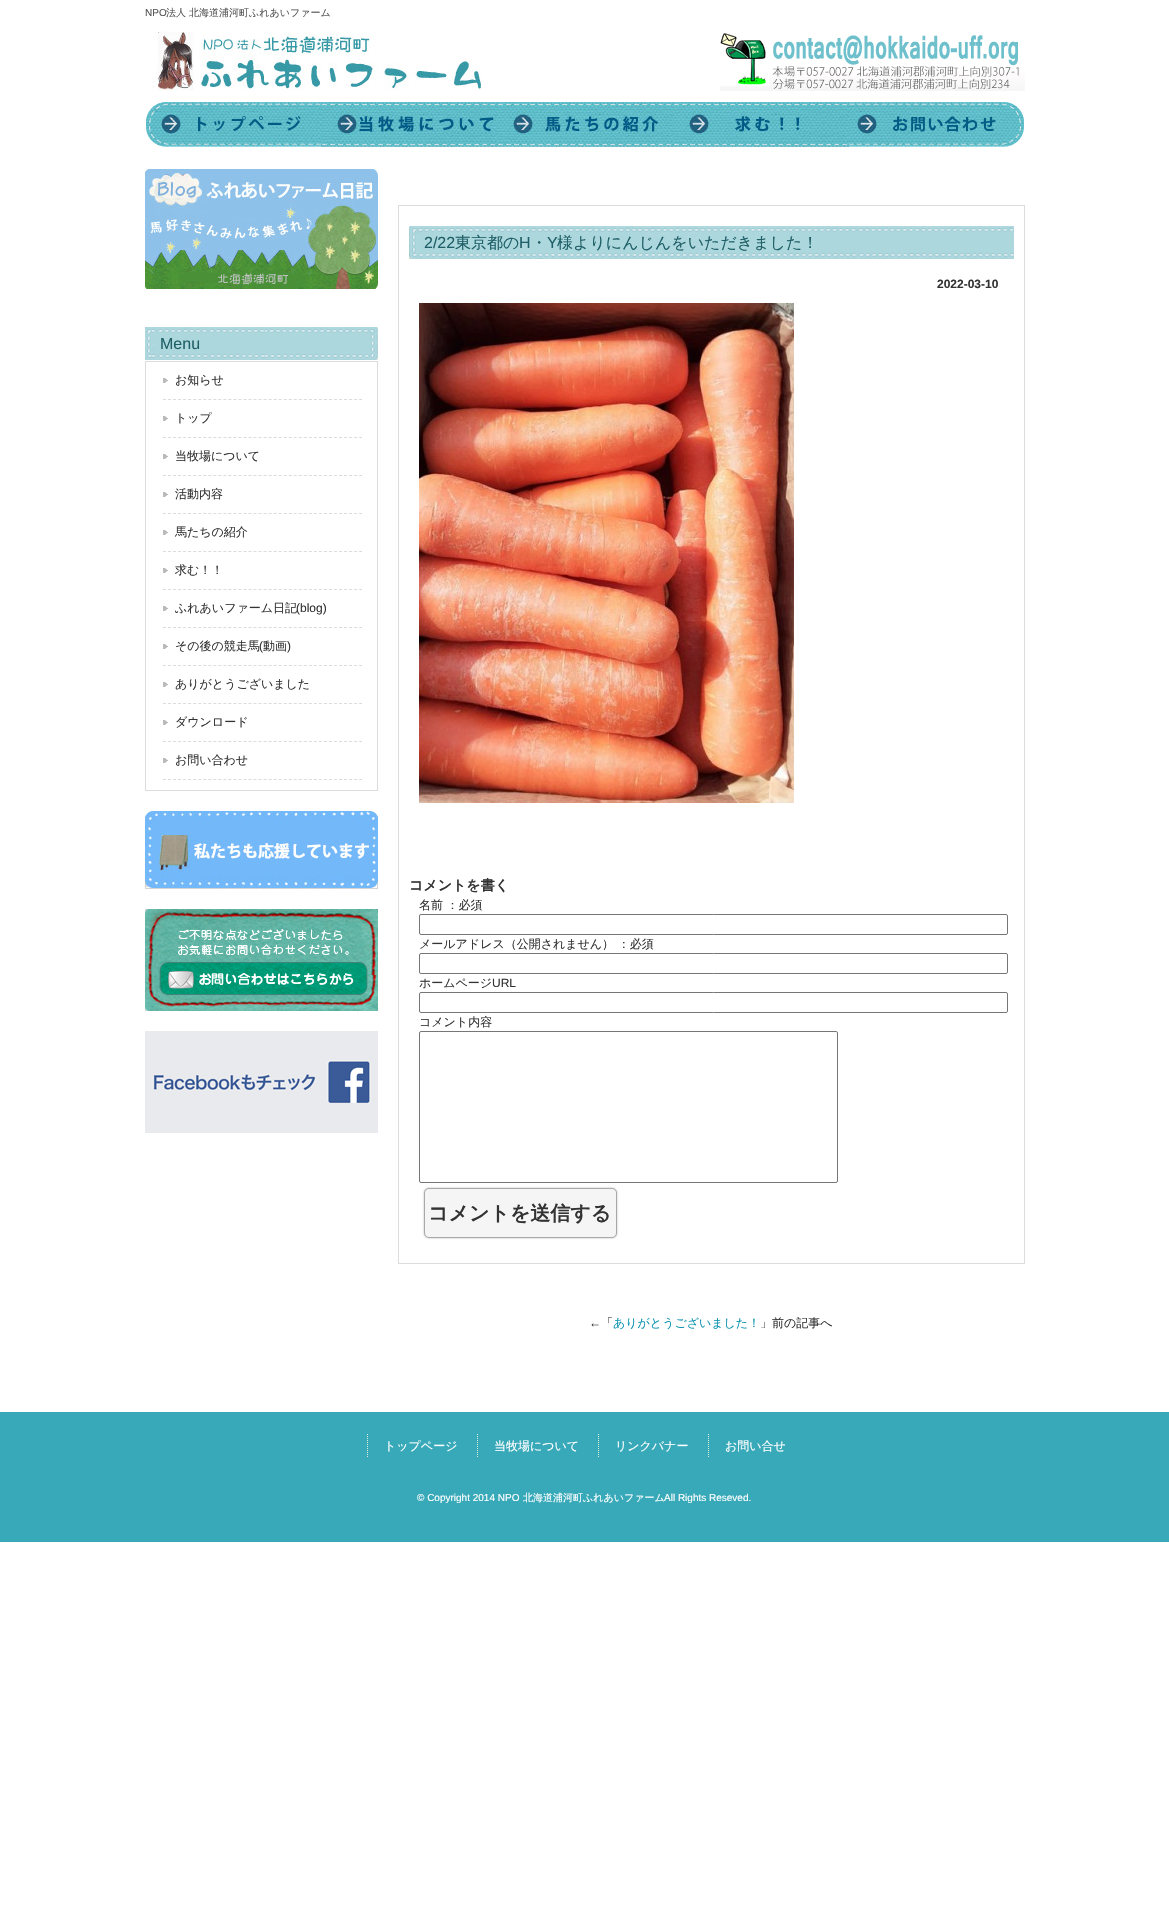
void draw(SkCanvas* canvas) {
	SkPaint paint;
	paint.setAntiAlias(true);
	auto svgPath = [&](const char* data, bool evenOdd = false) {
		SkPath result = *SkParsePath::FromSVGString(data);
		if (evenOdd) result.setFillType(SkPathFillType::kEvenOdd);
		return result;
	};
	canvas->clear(0xffffffff);
	SkFont f1(fontMgr->matchFamilyStyle("Liberation Sans", SkFontStyle::Normal()), 10);
	f1.setSubpixel(true);
	paint.setColor(0xff555555);
	canvas->drawString("NPO", 145, 16, f1, paint);
	SkFont f2(fontMgr->matchFamilyStyle("WenQuanYi Zen Hei", SkFontStyle(500, SkFontStyle::kNormal_Width, SkFontStyle::kUpright_Slant)), 10);
	f2.setSubpixel(true);
	canvas->drawString("法人 北海道浦河町ふれあいファーム", 166, 16, f2, paint);
	canvas->drawImageRect(SkImages::DeferredFromEncodedData(SkData::MakeFromFileName("img1.png")), SkRect::MakeXYWH(153, 31, 328, 60), SkSamplingOptions());
	canvas->drawImageRect(SkImages::DeferredFromEncodedData(SkData::MakeFromFileName("img2.png")), SkRect::MakeXYWH(720, 32, 305, 59), SkSamplingOptions());
	canvas->drawImageRect(SkImages::DeferredFromEncodedData(SkData::MakeFromFileName("img3.png")), SkRect::MakeXYWH(146, 102, 175, 45), SkSamplingOptions());
	canvas->drawImageRect(SkImages::DeferredFromEncodedData(SkData::MakeFromFileName("img4.png")), SkRect::MakeXYWH(321, 102, 176, 45), SkSamplingOptions());
	canvas->drawImageRect(SkImages::DeferredFromEncodedData(SkData::MakeFromFileName("img5.png")), SkRect::MakeXYWH(497, 102, 176, 45), SkSamplingOptions());
	canvas->drawImageRect(SkImages::DeferredFromEncodedData(SkData::MakeFromFileName("img6.png")), SkRect::MakeXYWH(673, 102, 176, 45), SkSamplingOptions());
	canvas->drawImageRect(SkImages::DeferredFromEncodedData(SkData::MakeFromFileName("img7.png")), SkRect::MakeXYWH(849, 102, 175, 45), SkSamplingOptions());
	canvas->drawImageRect(SkImages::DeferredFromEncodedData(SkData::MakeFromFileName("img8.png")), SkRect::MakeXYWH(145, 169, 233, 120), SkSamplingOptions());
	canvas->drawImageRect(SkImages::DeferredFromEncodedData(SkData::MakeFromFileName("img9.png")), SkRect::MakeXYWH(145, 327, 233, 33), SkSamplingOptions());
	SkFont f3(fontMgr->matchFamilyStyle("Liberation Sans", SkFontStyle::Normal()), 16);
	f3.setSubpixel(true);
	paint.setColor(0xff1f5f67);
	canvas->drawString("Menu", 160, 349, f3, paint);
	paint.setStroke(true);
	paint.setStrokeWidth(1);
	paint.setColor(0xffdcdcdc);
	canvas->drawRect(SkRect::MakeXYWH(145.5, 361.5, 232, 429), paint);
	paint.setPathEffect(SkDashPathEffect::Make({{3, 2.03f}}, 0));
	canvas->drawPath(svgPath("M163 399.5H362"), paint);
	paint.setPathEffect(nullptr);
	canvas->drawImageRect(SkImages::DeferredFromEncodedData(SkData::MakeFromFileName("img10.png")), SkRect::MakeXYWH(163, 378, 5, 5), SkSamplingOptions());
	SkFont f4(fontMgr->matchFamilyStyle("WenQuanYi Zen Hei", SkFontStyle(500, SkFontStyle::kNormal_Width, SkFontStyle::kUpright_Slant)), 12);
	f4.setSubpixel(true);
	paint.setStroke(false);
	paint.setColor(0xff333333);
	canvas->drawString("お知らせ", 175, 384, f4, paint);
	paint.setStroke(true);
	paint.setColor(0xffdcdcdc);
	paint.setPathEffect(SkDashPathEffect::Make({{3, 2.03f}}, 0));
	canvas->drawPath(svgPath("M163 437.5H362"), paint);
	paint.setPathEffect(nullptr);
	canvas->drawImageRect(SkImages::DeferredFromEncodedData(SkData::MakeFromFileName("img10.png")), SkRect::MakeXYWH(163, 416, 5, 5), SkSamplingOptions());
	paint.setStroke(false);
	paint.setColor(0xff333333);
	canvas->drawString("トップ", 175, 422, f4, paint);
	paint.setStroke(true);
	paint.setColor(0xffdcdcdc);
	paint.setPathEffect(SkDashPathEffect::Make({{3, 2.03f}}, 0));
	canvas->drawPath(svgPath("M163 475.5H362"), paint);
	paint.setPathEffect(nullptr);
	canvas->drawImageRect(SkImages::DeferredFromEncodedData(SkData::MakeFromFileName("img10.png")), SkRect::MakeXYWH(163, 454, 5, 5), SkSamplingOptions());
	paint.setStroke(false);
	paint.setColor(0xff333333);
	canvas->drawString("当牧場について", 175, 460, f4, paint);
	paint.setStroke(true);
	paint.setColor(0xffdcdcdc);
	paint.setPathEffect(SkDashPathEffect::Make({{3, 2.03f}}, 0));
	canvas->drawPath(svgPath("M163 513.5H362"), paint);
	paint.setPathEffect(nullptr);
	canvas->drawImageRect(SkImages::DeferredFromEncodedData(SkData::MakeFromFileName("img10.png")), SkRect::MakeXYWH(163, 492, 5, 5), SkSamplingOptions());
	paint.setStroke(false);
	paint.setColor(0xff333333);
	canvas->drawString("活動内容", 175, 498, f4, paint);
	paint.setStroke(true);
	paint.setColor(0xffdcdcdc);
	paint.setPathEffect(SkDashPathEffect::Make({{3, 2.03f}}, 0));
	canvas->drawPath(svgPath("M163 551.5H362"), paint);
	paint.setPathEffect(nullptr);
	canvas->drawImageRect(SkImages::DeferredFromEncodedData(SkData::MakeFromFileName("img10.png")), SkRect::MakeXYWH(163, 530, 5, 5), SkSamplingOptions());
	paint.setStroke(false);
	paint.setColor(0xff333333);
	canvas->drawString("馬たちの紹介", 175, 536, f4, paint);
	paint.setStroke(true);
	paint.setColor(0xffdcdcdc);
	paint.setPathEffect(SkDashPathEffect::Make({{3, 2.03f}}, 0));
	canvas->drawPath(svgPath("M163 589.5H362"), paint);
	paint.setPathEffect(nullptr);
	canvas->drawImageRect(SkImages::DeferredFromEncodedData(SkData::MakeFromFileName("img10.png")), SkRect::MakeXYWH(163, 568, 5, 5), SkSamplingOptions());
	paint.setStroke(false);
	paint.setColor(0xff333333);
	canvas->drawString("求む！！", 175, 574, f4, paint);
	paint.setStroke(true);
	paint.setColor(0xffdcdcdc);
	paint.setPathEffect(SkDashPathEffect::Make({{3, 2.03f}}, 0));
	canvas->drawPath(svgPath("M163 627.5H362"), paint);
	paint.setPathEffect(nullptr);
	canvas->drawImageRect(SkImages::DeferredFromEncodedData(SkData::MakeFromFileName("img10.png")), SkRect::MakeXYWH(163, 606, 5, 5), SkSamplingOptions());
	paint.setStroke(false);
	paint.setColor(0xff333333);
	canvas->drawString("ふれあいファーム日記", 175, 612, f4, paint);
	SkFont f5(fontMgr->matchFamilyStyle("Liberation Sans", SkFontStyle::Normal()), 12);
	f5.setSubpixel(true);
	canvas->drawString("(blog)", 296, 612, f5, paint);
	paint.setStroke(true);
	paint.setColor(0xffdcdcdc);
	paint.setPathEffect(SkDashPathEffect::Make({{3, 2.03f}}, 0));
	canvas->drawPath(svgPath("M163 665.5H362"), paint);
	paint.setPathEffect(nullptr);
	canvas->drawImageRect(SkImages::DeferredFromEncodedData(SkData::MakeFromFileName("img10.png")), SkRect::MakeXYWH(163, 644, 5, 5), SkSamplingOptions());
	paint.setStroke(false);
	paint.setColor(0xff333333);
	canvas->drawString("その後の競走馬", 175, 650, f4, paint);
	canvas->drawString("(", 259, 650, f5, paint);
	canvas->drawString("動画", 263, 650, f4, paint);
	canvas->drawString(")", 287, 650, f5, paint);
	paint.setStroke(true);
	paint.setColor(0xffdcdcdc);
	paint.setPathEffect(SkDashPathEffect::Make({{3, 2.03f}}, 0));
	canvas->drawPath(svgPath("M163 703.5H362"), paint);
	paint.setPathEffect(nullptr);
	canvas->drawImageRect(SkImages::DeferredFromEncodedData(SkData::MakeFromFileName("img10.png")), SkRect::MakeXYWH(163, 682, 5, 5), SkSamplingOptions());
	paint.setStroke(false);
	paint.setColor(0xff333333);
	canvas->drawString("ありがとうございました", 175, 688, f4, paint);
	paint.setStroke(true);
	paint.setColor(0xffdcdcdc);
	paint.setPathEffect(SkDashPathEffect::Make({{3, 2.03f}}, 0));
	canvas->drawPath(svgPath("M163 741.5H362"), paint);
	paint.setPathEffect(nullptr);
	canvas->drawImageRect(SkImages::DeferredFromEncodedData(SkData::MakeFromFileName("img10.png")), SkRect::MakeXYWH(163, 720, 5, 5), SkSamplingOptions());
	paint.setStroke(false);
	paint.setColor(0xff333333);
	canvas->drawString("ダウンロード", 175, 726, f4, paint);
	paint.setStroke(true);
	paint.setColor(0xffdcdcdc);
	paint.setPathEffect(SkDashPathEffect::Make({{3, 2.03f}}, 0));
	canvas->drawPath(svgPath("M163 779.5H362"), paint);
	paint.setPathEffect(nullptr);
	canvas->drawImageRect(SkImages::DeferredFromEncodedData(SkData::MakeFromFileName("img10.png")), SkRect::MakeXYWH(163, 758, 5, 5), SkSamplingOptions());
	paint.setStroke(false);
	paint.setColor(0xff333333);
	canvas->drawString("お問い合わせ", 175, 764, f4, paint);
	canvas->drawImageRect(SkImages::DeferredFromEncodedData(SkData::MakeFromFileName("img11.png")), SkRect::MakeXYWH(145, 811, 233, 78), SkSamplingOptions());
	canvas->drawImageRect(SkImages::DeferredFromEncodedData(SkData::MakeFromFileName("img12.png")), SkRect::MakeXYWH(145, 909, 233, 102), SkSamplingOptions());
	canvas->drawImageRect(SkImages::DeferredFromEncodedData(SkData::MakeFromFileName("img13.png")), SkRect::MakeXYWH(145, 1031, 233, 102), SkSamplingOptions());
	paint.setStroke(true);
	paint.setColor(0xffdcdcdc);
	canvas->drawRect(SkRect::MakeXYWH(398.5, 205.5, 626, 1058), paint);
	canvas->drawImageRect(SkImages::DeferredFromEncodedData(SkData::MakeFromFileName("img14.png")), SkRect::MakeXYWH(409, 226, 605, 33), SkSamplingOptions());
	paint.setStroke(false);
	paint.setColor(0xff1f5f67);
	canvas->drawString("2/22", 424, 248, f3, paint);
	SkFont f6(fontMgr->matchFamilyStyle("WenQuanYi Zen Hei", SkFontStyle(500, SkFontStyle::kNormal_Width, SkFontStyle::kUpright_Slant)), 16);
	f6.setSubpixel(true);
	canvas->drawString("東京都の", 455, 248, f6, paint);
	canvas->drawString("H", 519, 248, f3, paint);
	canvas->drawString("・", 531, 248, f6, paint);
	canvas->drawString("Y", 547, 248, f3, paint);
	canvas->drawString("様よりにんじんをいただきました！", 557, 248, f6, paint);
	SkFont f7(fontMgr->matchFamilyStyle("Liberation Sans", SkFontStyle::Bold()), 12);
	f7.setSubpixel(true);
	paint.setColor(0xff333333);
	canvas->drawString("2022-03-10", 937, 288, f7, paint);
	canvas->drawImageRect(SkImages::DeferredFromEncodedData(SkData::MakeFromFileName("img15.png")), SkRect::MakeXYWH(419, 303, 375, 500), SkSamplingOptions());
	SkFont f8(fontMgr->matchFamilyStyle("WenQuanYi Zen Hei", SkFontStyle::Bold()), 14);
	f8.setSubpixel(true);
	canvas->drawString("コメントを書く", 409, 890, f8, paint);
	canvas->drawString("名前 ：必須", 419, 909, f4, paint);
	paint.setStroke(true);
	paint.setColor(0xff767676);
	canvas->drawRoundRect(SkRect::MakeXYWH(419.5, 914.5, 588, 20), 1.5, 1.5, paint);
	paint.setStroke(false);
	paint.setColor(0xff333333);
	canvas->drawString("メールアドレス（公開されません） ：必須", 419, 948, f4, paint);
	paint.setStroke(true);
	paint.setColor(0xff767676);
	canvas->drawRoundRect(SkRect::MakeXYWH(419.5, 953.5, 588, 20), 1.5, 1.5, paint);
	paint.setStroke(false);
	paint.setColor(0xff333333);
	canvas->drawString("ホームページ", 419, 987, f4, paint);
	canvas->drawString("URL", 492, 987, f5, paint);
	paint.setStroke(true);
	paint.setColor(0xff767676);
	canvas->drawRoundRect(SkRect::MakeXYWH(419.5, 992.5, 588, 20), 1.5, 1.5, paint);
	paint.setStroke(false);
	paint.setColor(0xff333333);
	canvas->drawString("コメント内容", 419, 1026, f4, paint);
	paint.setStroke(true);
	paint.setColor(0xff767676);
	canvas->drawRoundRect(SkRect::MakeXYWH(419.5, 1031.5, 418, 151), 1.5, 1.5, paint);
	paint.setStroke(false);
	paint.setColor(0x4d000000);
	paint.setMaskFilter(SkMaskFilter::MakeBlur(kNormal_SkBlurStyle, 1));
	canvas->drawRoundRect(SkRect::MakeXYWH(424, 1188, 193, 50), 5, 5, paint);
	paint.setMaskFilter(nullptr);
	paint.setColor(0xfff5f5f5);
	canvas->drawRoundRect(SkRect::MakeXYWH(424.5, 1188.5, 192, 49), 4.5, 4.5, paint);
	paint.setStroke(true);
	paint.setColor(0xffa9a9a9);
	canvas->drawRoundRect(SkRect::MakeXYWH(424.5, 1188.5, 192, 49), 4.5, 4.5, paint);
	SkFont f9(fontMgr->matchFamilyStyle("WenQuanYi Zen Hei", SkFontStyle::Bold()), 20);
	f9.setSubpixel(true);
	paint.setStroke(false);
	paint.setColor(0xff333333);
	canvas->drawString("コメントを送信する", 428, 1220, f9, paint);
	canvas->drawString("←", 589, 1327, f5, paint);
	canvas->drawString("「", 601, 1327, f4, paint);
	paint.setColor(0xff0d93b0);
	canvas->drawString("ありがとうございました！", 613, 1327, f4, paint);
	paint.setColor(0xff333333);
	canvas->drawString("」前の記事へ", 760, 1327, f4, paint);
	paint.setColor(0xff38a9b9);
	canvas->drawRect(SkRect::MakeXYWH(0, 1412, 1169, 130), paint);
	paint.setColor(0xffffffff);
	canvas->drawString("トップページ", 384, 1450, f4, paint);
	paint.setStroke(true);
	paint.setColor(0xffe2f0d9);
	paint.setPathEffect(SkDashPathEffect::Make({{1, 1}}, 0));
	canvas->drawPath(svgPath("M367.5 1434V1458"), paint);
	paint.setPathEffect(nullptr);
	paint.setStroke(false);
	paint.setColor(0xffffffff);
	canvas->drawString("当牧場について", 494, 1450, f4, paint);
	paint.setStroke(true);
	paint.setColor(0xffe2f0d9);
	paint.setPathEffect(SkDashPathEffect::Make({{1, 1}}, 0));
	canvas->drawPath(svgPath("M477.5 1434V1458"), paint);
	paint.setPathEffect(nullptr);
	paint.setStroke(false);
	paint.setColor(0xffffffff);
	canvas->drawString("リンクバナー", 615, 1450, f4, paint);
	paint.setStroke(true);
	paint.setColor(0xffe2f0d9);
	paint.setPathEffect(SkDashPathEffect::Make({{1, 1}}, 0));
	canvas->drawPath(svgPath("M598.5 1434V1458"), paint);
	paint.setPathEffect(nullptr);
	paint.setStroke(false);
	paint.setColor(0xffffffff);
	canvas->drawString("お問い合せ", 725, 1450, f4, paint);
	paint.setStroke(true);
	paint.setColor(0xffe2f0d9);
	paint.setPathEffect(SkDashPathEffect::Make({{1, 1}}, 0));
	canvas->drawPath(svgPath("M708.5 1434V1458"), paint);
	paint.setPathEffect(nullptr);
	paint.setStroke(false);
	paint.setColor(0xffffffff);
	canvas->drawString("© Copyright 2014 NPO", 417, 1501, f1, paint);
	canvas->drawString("北海道浦河町ふれあいファーム", 523, 1501, f2, paint);
	canvas->drawString("All Rights Reseved.", 664, 1501, f1, paint);
}
